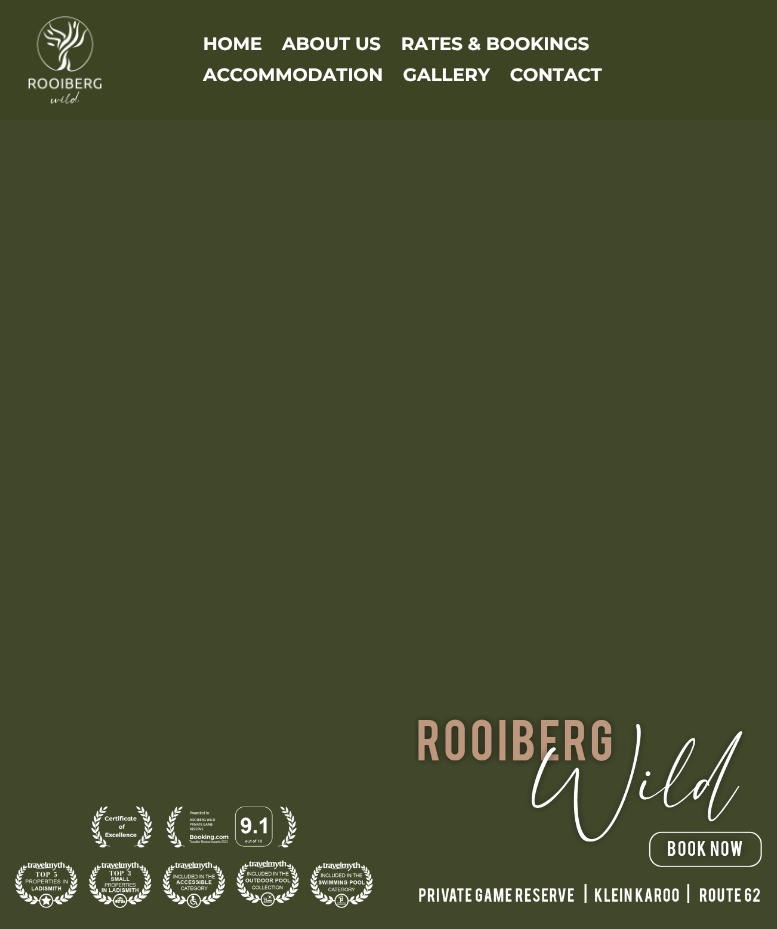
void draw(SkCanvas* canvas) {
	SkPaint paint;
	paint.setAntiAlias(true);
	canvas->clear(0xff41482a);
	paint.setColor(0xff3c4423);
	canvas->drawRect(SkRect::MakeXYWH(0, 0, 777, 120), paint);
	canvas->drawImageRect(SkImages::DeferredFromEncodedData(SkData::MakeFromFileName("img1.png")), SkRect::MakeXYWH(28, 16, 74, 88), SkSamplingOptions());
	SkFont f1(fontMgr->matchFamilyStyle("Montserrat", SkFontStyle::Bold()), 18);
	f1.setSubpixel(true);
	paint.setColor(0xffffffff);
	canvas->drawString("HOME", 203, 50, f1, paint);
	canvas->drawString("ABOUT US", 282, 50, f1, paint);
	canvas->drawString("RATES & BOOKINGS", 401, 50, f1, paint);
	canvas->drawString("ACCOMMODATION", 203, 81, f1, paint);
	canvas->drawString("GALLERY", 403, 81, f1, paint);
	canvas->drawString("CONTACT", 510, 81, f1, paint);
	canvas->drawImageRect(SkImages::DeferredFromEncodedData(SkData::MakeFromFileName("img2.png")), SkRect::MakeXYWH(15, 806, 358, 102), SkSamplingOptions());
	canvas->drawImageRect(SkImages::DeferredFromEncodedData(SkData::MakeFromFileName("img3.png")), SkRect::MakeXYWH(414, 715, 348, 188), SkSamplingOptions());
}
